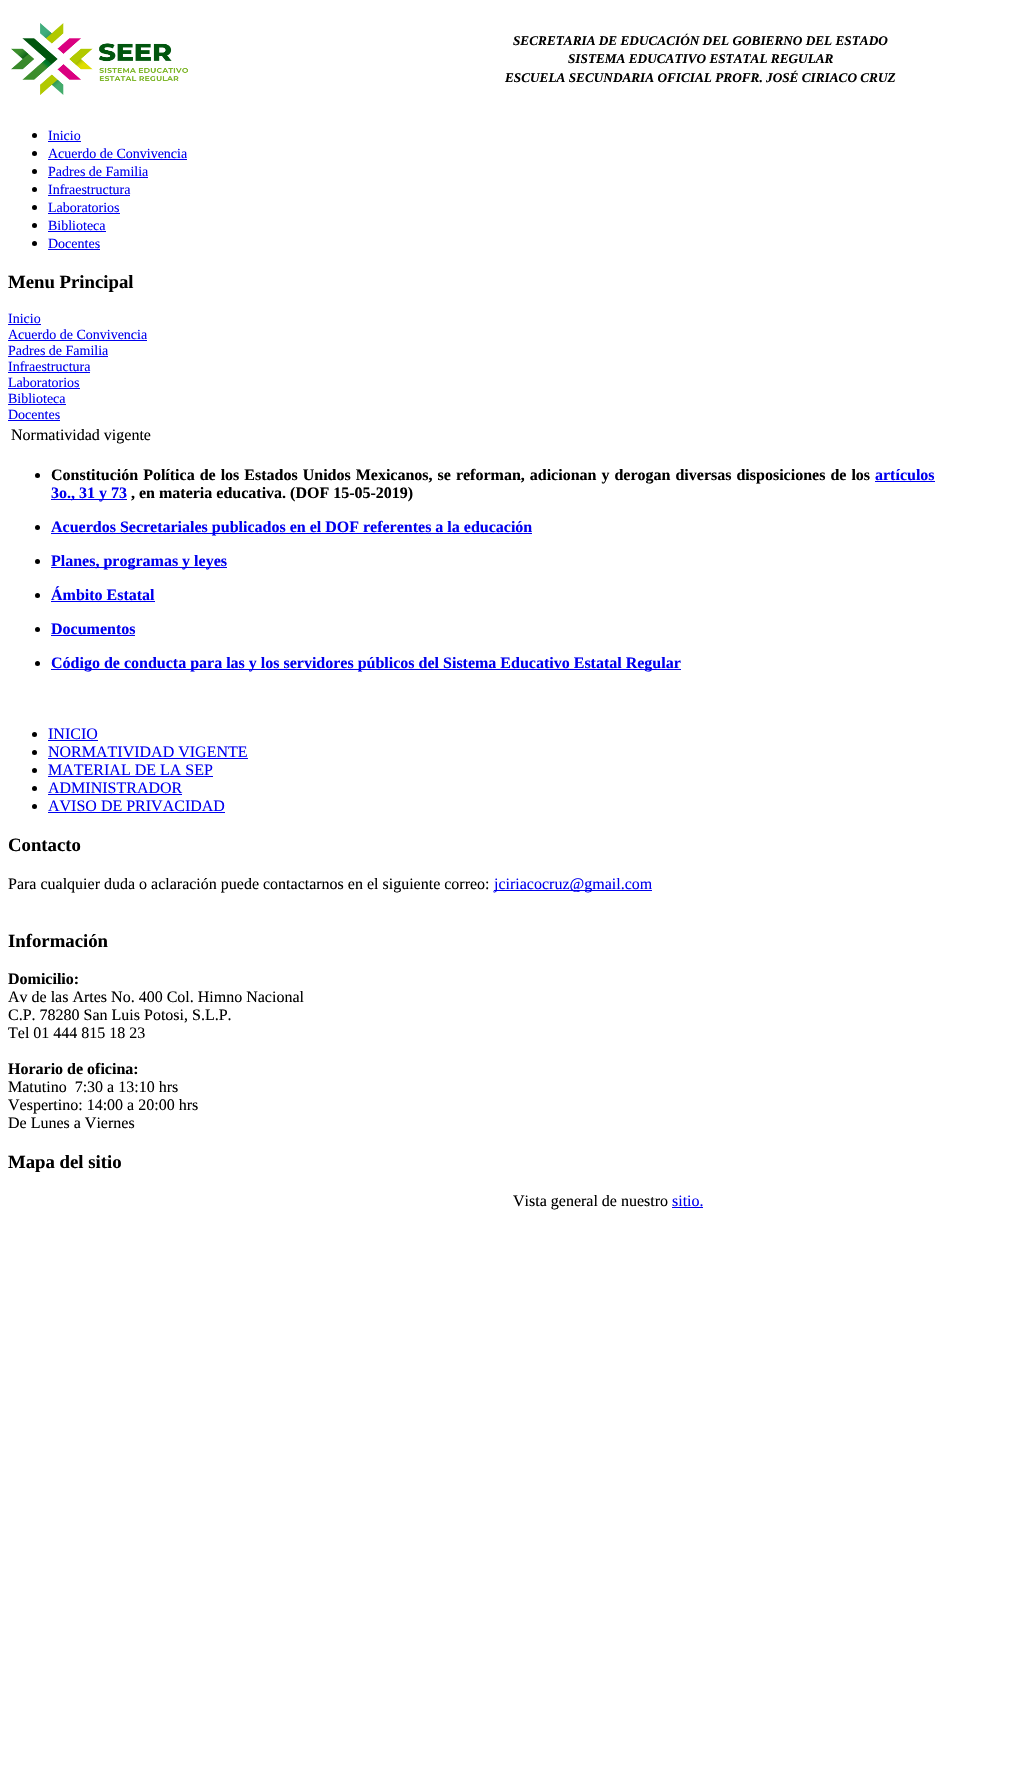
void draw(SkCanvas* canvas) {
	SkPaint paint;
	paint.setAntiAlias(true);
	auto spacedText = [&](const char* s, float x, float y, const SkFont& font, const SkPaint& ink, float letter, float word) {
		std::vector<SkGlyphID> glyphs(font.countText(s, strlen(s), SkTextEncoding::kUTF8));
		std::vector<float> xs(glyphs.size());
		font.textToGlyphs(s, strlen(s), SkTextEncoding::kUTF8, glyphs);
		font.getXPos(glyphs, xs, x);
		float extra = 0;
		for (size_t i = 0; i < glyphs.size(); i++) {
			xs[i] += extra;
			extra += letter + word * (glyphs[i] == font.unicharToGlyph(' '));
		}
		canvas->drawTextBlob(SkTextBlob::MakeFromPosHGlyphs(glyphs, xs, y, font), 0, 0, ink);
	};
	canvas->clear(0xffffffff);
	canvas->drawImageRect(SkImages::DeferredFromEncodedData(SkData::MakeFromFileName("img1.png")), SkRect::MakeXYWH(11, 23, 177, 72), SkSamplingOptions());
	SkFont f1(fontMgr->matchFamilyStyle("Liberation Serif", SkFontStyle::BoldItalic()), 13.25);
	f1.setSubpixel(true);
	paint.setColor(0xff000000);
	canvas->drawString("SECRETARIA DE EDUCACIÓN DEL GOBIERNO DEL ESTADO", 513, 45, f1, paint);
	canvas->drawString("SISTEMA EDUCATIVO ESTATAL REGULAR", 568, 63, f1, paint);
	canvas->drawString("ESCUELA SECUNDARIA OFICIAL PROFR. JOSÉ CIRIACO CRUZ", 505, 82, f1, paint);
	canvas->drawCircle(34.5, 135.5, 2.5, paint);
	SkFont f2(fontMgr->matchFamilyStyle("Liberation Serif", SkFontStyle::Normal()), 14);
	f2.setSubpixel(true);
	paint.setColor(0xff0000ee);
	canvas->drawString("Inicio", 48, 140, f2, paint);
	canvas->drawRect(SkRect::MakeXYWH(48, 141, 33, 1), paint);
	paint.setColor(0xff000000);
	canvas->drawCircle(34.5, 153.5, 2.5, paint);
	paint.setColor(0xff0000ee);
	canvas->drawString("Acuerdo de Convivencia", 48, 158, f2, paint);
	canvas->drawRect(SkRect::MakeXYWH(48, 159, 139, 1), paint);
	paint.setColor(0xff000000);
	canvas->drawCircle(34.5, 171.5, 2.5, paint);
	paint.setColor(0xff0000ee);
	canvas->drawString("Padres de Familia", 48, 176, f2, paint);
	canvas->drawRect(SkRect::MakeXYWH(48, 177, 100, 1), paint);
	paint.setColor(0xff000000);
	canvas->drawCircle(34.5, 189.5, 2.5, paint);
	paint.setColor(0xff0000ee);
	canvas->drawString("Infraestructura", 48, 194, f2, paint);
	canvas->drawRect(SkRect::MakeXYWH(48, 195, 82, 1), paint);
	paint.setColor(0xff000000);
	canvas->drawCircle(34.5, 207.5, 2.5, paint);
	paint.setColor(0xff0000ee);
	canvas->drawString("Laboratorios", 48, 212, f2, paint);
	canvas->drawRect(SkRect::MakeXYWH(48, 213, 72, 1), paint);
	paint.setColor(0xff000000);
	canvas->drawCircle(34.5, 225.5, 2.5, paint);
	paint.setColor(0xff0000ee);
	canvas->drawString("Biblioteca", 48, 230, f2, paint);
	canvas->drawRect(SkRect::MakeXYWH(48, 231, 58, 1), paint);
	paint.setColor(0xff000000);
	canvas->drawCircle(34.5, 243.5, 2.5, paint);
	paint.setColor(0xff0000ee);
	canvas->drawString("Docentes", 48, 248, f2, paint);
	canvas->drawRect(SkRect::MakeXYWH(48, 249, 52, 1), paint);
	SkFont f3(fontMgr->matchFamilyStyle("Liberation Serif", SkFontStyle::Bold()), 18.75);
	f3.setSubpixel(true);
	paint.setColor(0xff000000);
	canvas->drawString("Menu Principal", 8, 288, f3, paint);
	paint.setColor(0xff0000ee);
	canvas->drawString("Inicio", 8, 323, f2, paint);
	canvas->drawRect(SkRect::MakeXYWH(8, 324, 33, 1), paint);
	canvas->drawString("Acuerdo de Convivencia", 8, 339, f2, paint);
	canvas->drawRect(SkRect::MakeXYWH(8, 340, 139, 1), paint);
	canvas->drawString("Padres de Familia", 8, 355, f2, paint);
	canvas->drawRect(SkRect::MakeXYWH(8, 356, 100, 1), paint);
	canvas->drawString("Infraestructura", 8, 371, f2, paint);
	canvas->drawRect(SkRect::MakeXYWH(8, 372, 82, 1), paint);
	canvas->drawString("Laboratorios", 8, 387, f2, paint);
	canvas->drawRect(SkRect::MakeXYWH(8, 388, 72, 1), paint);
	canvas->drawString("Biblioteca", 8, 403, f2, paint);
	canvas->drawRect(SkRect::MakeXYWH(8, 404, 58, 1), paint);
	canvas->drawString("Docentes", 8, 419, f2, paint);
	canvas->drawRect(SkRect::MakeXYWH(8, 420, 52, 1), paint);
	SkFont f4(fontMgr->matchFamilyStyle("Liberation Serif", SkFontStyle::Normal()), 16);
	f4.setSubpixel(true);
	paint.setColor(0xff000000);
	canvas->drawString("Normatividad vigente", 11, 440, f4, paint);
	canvas->drawCircle(37.5, 475.5, 2.5, paint);
	SkFont f5(fontMgr->matchFamilyStyle("Liberation Serif", SkFontStyle::Bold()), 16);
	f5.setSubpixel(true);
	spacedText("Constitución Política de los Estados Unidos Mexicanos, se reforman, adicionan y derogan diversas disposiciones de los", 51, 480, f5, paint, 0, 1);
	paint.setColor(0xff0000ee);
	canvas->drawString("artículos", 875, 480, f5, paint);
	canvas->drawRect(SkRect::MakeXYWH(875, 481, 60, 1), paint);
	canvas->drawRect(SkRect::MakeXYWH(51, 499, 76, 1), paint);
	canvas->drawString("3o., 31 y 73", 51, 498, f5, paint);
	paint.setColor(0xff000000);
	canvas->drawString(", en materia educativa. (DOF 15-05-2019)", 131, 498, f5, paint);
	canvas->drawCircle(37.5, 527.5, 2.5, paint);
	paint.setColor(0xff0000ee);
	canvas->drawRect(SkRect::MakeXYWH(51, 533, 481, 1), paint);
	canvas->drawString("Acuerdos Secretariales publicados en el DOF referentes a la educación", 51, 532, f5, paint);
	paint.setColor(0xff000000);
	canvas->drawCircle(37.5, 561.5, 2.5, paint);
	paint.setColor(0xff0000ee);
	canvas->drawRect(SkRect::MakeXYWH(51, 567, 176, 1), paint);
	canvas->drawString("Planes, programas y leyes", 51, 566, f5, paint);
	paint.setColor(0xff000000);
	canvas->drawCircle(37.5, 595.5, 2.5, paint);
	paint.setColor(0xff0000ee);
	canvas->drawString("Ámbito Estatal", 51, 600, f5, paint);
	canvas->drawRect(SkRect::MakeXYWH(51, 601, 104, 1), paint);
	paint.setColor(0xff000000);
	canvas->drawCircle(37.5, 629.5, 2.5, paint);
	paint.setColor(0xff0000ee);
	canvas->drawString("Documentos", 51, 634, f5, paint);
	canvas->drawRect(SkRect::MakeXYWH(51, 635, 84, 1), paint);
	paint.setColor(0xff000000);
	canvas->drawCircle(37.5, 663.5, 2.5, paint);
	paint.setColor(0xff0000ee);
	canvas->drawRect(SkRect::MakeXYWH(51, 669, 630, 1), paint);
	canvas->drawString("Código de conducta para las y los servidores públicos del Sistema Educativo Estatal Regular", 51, 668, f5, paint);
	paint.setColor(0xff000000);
	canvas->drawCircle(34.5, 734.5, 2.5, paint);
	paint.setColor(0xff0000ee);
	canvas->drawString("INICIO", 48, 739, f4, paint);
	canvas->drawRect(SkRect::MakeXYWH(48, 740, 50, 1), paint);
	paint.setColor(0xff000000);
	canvas->drawCircle(34.5, 752.5, 2.5, paint);
	paint.setColor(0xff0000ee);
	canvas->drawString("NORMATIVIDAD VIGENTE", 48, 757, f4, paint);
	canvas->drawRect(SkRect::MakeXYWH(48, 758, 200, 1), paint);
	paint.setColor(0xff000000);
	canvas->drawCircle(34.5, 770.5, 2.5, paint);
	paint.setColor(0xff0000ee);
	canvas->drawString("MATERIAL DE LA SEP", 48, 775, f4, paint);
	canvas->drawRect(SkRect::MakeXYWH(48, 776, 165, 1), paint);
	paint.setColor(0xff000000);
	canvas->drawCircle(34.5, 788.5, 2.5, paint);
	paint.setColor(0xff0000ee);
	canvas->drawString("ADMINISTRADOR", 48, 793, f4, paint);
	canvas->drawRect(SkRect::MakeXYWH(48, 794, 134, 1), paint);
	paint.setColor(0xff000000);
	canvas->drawCircle(34.5, 806.5, 2.5, paint);
	paint.setColor(0xff0000ee);
	canvas->drawString("AVISO DE PRIVACIDAD", 48, 811, f4, paint);
	canvas->drawRect(SkRect::MakeXYWH(48, 812, 177, 1), paint);
	paint.setColor(0xff000000);
	canvas->drawString("Contacto", 8, 851, f3, paint);
	canvas->drawString("Para cualquier duda o aclaración puede contactarnos en el siguiente correo:", 8, 889, f4, paint);
	paint.setColor(0xff0000ee);
	canvas->drawRect(SkRect::MakeXYWH(494, 890, 158, 1), paint);
	canvas->drawString("jciriacocruz@gmail.com", 494, 889, f4, paint);
	paint.setColor(0xff000000);
	canvas->drawString("Información", 8, 947, f3, paint);
	canvas->drawString("Domicilio:", 8, 984, f5, paint);
	canvas->drawString("Av de las Artes No. 400 Col. Himno Nacional", 8, 1002, f4, paint);
	canvas->drawString("C.P. 78280 San Luis Potosi, S.L.P.", 8, 1020, f4, paint);
	canvas->drawString("Tel 01 444 815 18 23", 8, 1038, f4, paint);
	canvas->drawString("Horario de oficina:", 8, 1074, f5, paint);
	canvas->drawString("Matutino  7:30 a 13:10 hrs", 8, 1092, f4, paint);
	canvas->drawString("Vespertino: 14:00 a 20:00 hrs", 8, 1110, f4, paint);
	canvas->drawString("De Lunes a Viernes", 8, 1128, f4, paint);
	canvas->drawString("Mapa del sitio", 8, 1168, f3, paint);
	canvas->drawString("Vista general de nuestro", 513, 1206, f4, paint);
	paint.setColor(0xff0000ee);
	canvas->drawString("sitio.", 672, 1206, f4, paint);
	canvas->drawRect(SkRect::MakeXYWH(672, 1207, 31, 1), paint);
}
